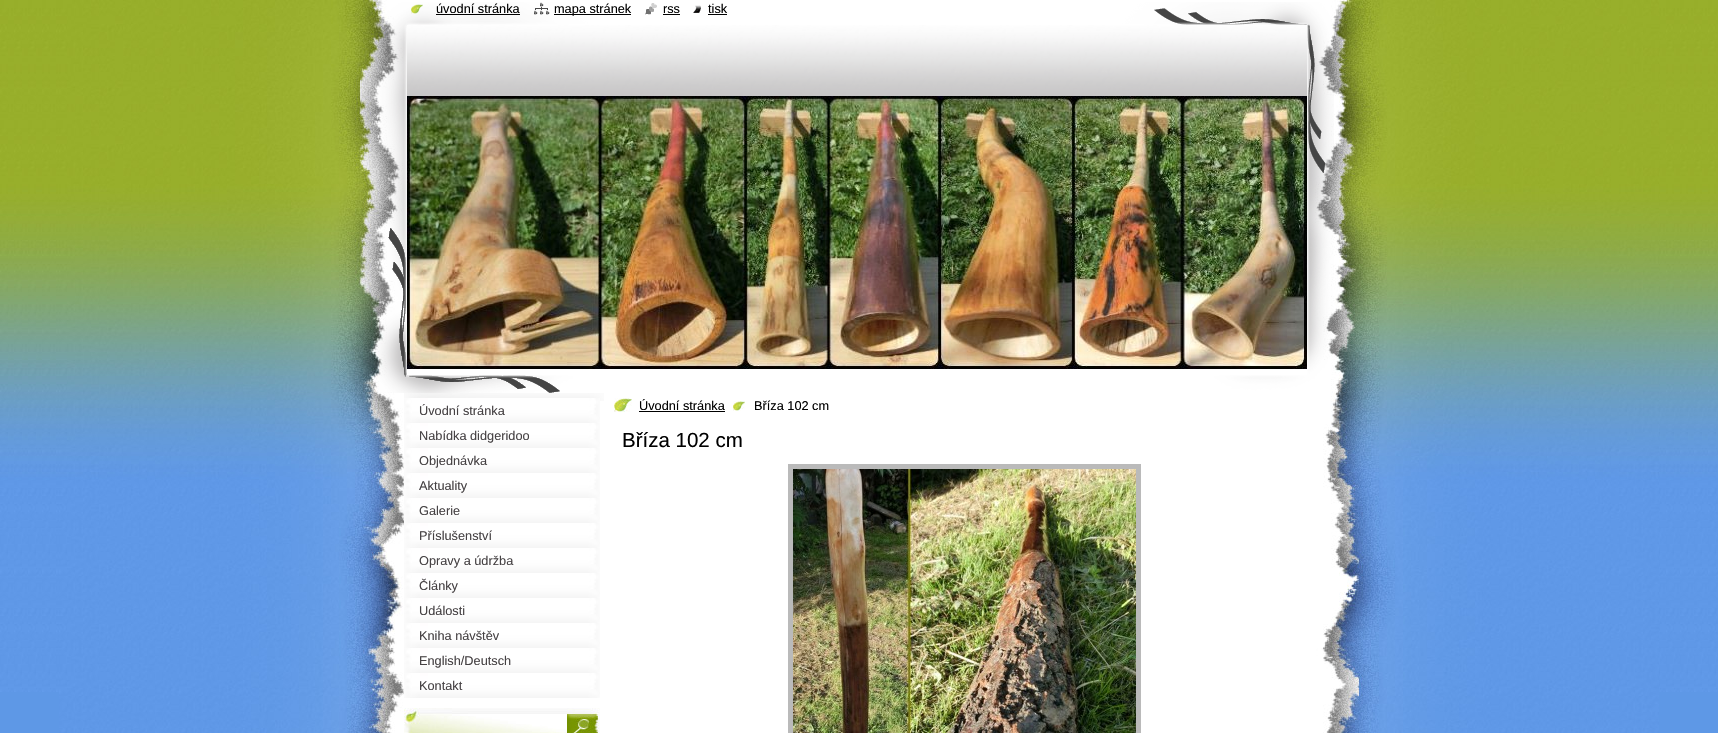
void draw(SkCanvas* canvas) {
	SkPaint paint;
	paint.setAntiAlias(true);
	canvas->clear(0xff5e98e6);
	canvas->drawImageRect(SkImages::DeferredFromEncodedData(SkData::MakeFromFileName("img1.png")), SkRect::MakeXYWH(0, 0, 1718, 692), SkSamplingOptions());
	canvas->drawImageRect(SkImages::DeferredFromEncodedData(SkData::MakeFromFileName("img2.png")), SkRect::MakeXYWH(59, 479, 1600, 254), SkSamplingOptions());
	canvas->drawImageRect(SkImages::DeferredFromEncodedData(SkData::MakeFromFileName("img3.png")), SkRect::MakeXYWH(59, 0, 1600, 479), SkSamplingOptions());
	canvas->drawImageRect(SkImages::DeferredFromEncodedData(SkData::MakeFromFileName("img4.png")), SkRect::MakeXYWH(377, 2, 957, 391), SkSamplingOptions());
	canvas->drawImageRect(SkImages::DeferredFromEncodedData(SkData::MakeFromFileName("img5.png")), SkRect::MakeXYWH(407, 96, 900, 273), SkSamplingOptions());
	canvas->drawImageRect(SkImages::DeferredFromEncodedData(SkData::MakeFromFileName("img6.png")), SkRect::MakeXYWH(411, 4, 12, 10), SkSamplingOptions());
	SkFont f1(fontMgr->matchFamilyStyle("Liberation Sans", SkFontStyle::Normal()), 12.75);
	f1.setSubpixel(true);
	paint.setColor(0xff000000);
	canvas->drawString("úvodní stránka", 436, 13, f1, paint);
	canvas->drawRect(SkRect::MakeXYWH(436, 14, 84, 1), paint);
	canvas->drawImageRect(SkImages::DeferredFromEncodedData(SkData::MakeFromFileName("img7.png")), SkRect::MakeXYWH(534, 2, 16, 13), SkSamplingOptions());
	canvas->drawRect(SkRect::MakeXYWH(554, 14, 77, 1), paint);
	canvas->drawString("mapa stránek", 554, 13, f1, paint);
	canvas->drawImageRect(SkImages::DeferredFromEncodedData(SkData::MakeFromFileName("img8.png")), SkRect::MakeXYWH(645, 3, 12, 12), SkSamplingOptions());
	canvas->drawString("rss", 663, 13, f1, paint);
	canvas->drawRect(SkRect::MakeXYWH(663, 14, 17, 1), paint);
	canvas->drawImageRect(SkImages::DeferredFromEncodedData(SkData::MakeFromFileName("img9.png")), SkRect::MakeXYWH(693, 5, 8, 8), SkSamplingOptions());
	canvas->drawString("tisk", 708, 13, f1, paint);
	canvas->drawRect(SkRect::MakeXYWH(708, 14, 19, 1), paint);
	canvas->drawImageRect(SkImages::DeferredFromEncodedData(SkData::MakeFromFileName("img10.png")), SkRect::MakeXYWH(404, 393, 200, 8), SkSamplingOptions());
	canvas->drawImageRect(SkImages::DeferredFromEncodedData(SkData::MakeFromFileName("img11.png")), SkRect::MakeXYWH(404, 398, 196, 25), SkSamplingOptions());
	paint.setColor(0xff454143);
	canvas->drawString("Úvodní stránka", 419, 415, f1, paint);
	canvas->drawImageRect(SkImages::DeferredFromEncodedData(SkData::MakeFromFileName("img11.png")), SkRect::MakeXYWH(404, 423, 196, 25), SkSamplingOptions());
	canvas->drawString("Nabídka didgeridoo", 419, 440, f1, paint);
	canvas->drawImageRect(SkImages::DeferredFromEncodedData(SkData::MakeFromFileName("img11.png")), SkRect::MakeXYWH(404, 448, 196, 25), SkSamplingOptions());
	canvas->drawString("Objednávka", 419, 465, f1, paint);
	canvas->drawImageRect(SkImages::DeferredFromEncodedData(SkData::MakeFromFileName("img11.png")), SkRect::MakeXYWH(404, 473, 196, 25), SkSamplingOptions());
	canvas->drawString("Aktuality", 419, 490, f1, paint);
	canvas->drawImageRect(SkImages::DeferredFromEncodedData(SkData::MakeFromFileName("img11.png")), SkRect::MakeXYWH(404, 498, 196, 25), SkSamplingOptions());
	canvas->drawString("Galerie", 419, 515, f1, paint);
	canvas->drawImageRect(SkImages::DeferredFromEncodedData(SkData::MakeFromFileName("img11.png")), SkRect::MakeXYWH(404, 523, 196, 25), SkSamplingOptions());
	canvas->drawString("Příslušenství", 419, 540, f1, paint);
	canvas->drawImageRect(SkImages::DeferredFromEncodedData(SkData::MakeFromFileName("img11.png")), SkRect::MakeXYWH(404, 548, 196, 25), SkSamplingOptions());
	canvas->drawString("Opravy a údržba", 419, 565, f1, paint);
	canvas->drawImageRect(SkImages::DeferredFromEncodedData(SkData::MakeFromFileName("img11.png")), SkRect::MakeXYWH(404, 573, 196, 25), SkSamplingOptions());
	canvas->drawString("Články", 419, 590, f1, paint);
	canvas->drawImageRect(SkImages::DeferredFromEncodedData(SkData::MakeFromFileName("img11.png")), SkRect::MakeXYWH(404, 598, 196, 25), SkSamplingOptions());
	canvas->drawString("Události", 419, 615, f1, paint);
	canvas->drawImageRect(SkImages::DeferredFromEncodedData(SkData::MakeFromFileName("img11.png")), SkRect::MakeXYWH(404, 623, 196, 25), SkSamplingOptions());
	canvas->drawString("Kniha návštěv", 419, 640, f1, paint);
	canvas->drawImageRect(SkImages::DeferredFromEncodedData(SkData::MakeFromFileName("img11.png")), SkRect::MakeXYWH(404, 648, 196, 25), SkSamplingOptions());
	canvas->drawString("English/Deutsch", 419, 665, f1, paint);
	canvas->drawImageRect(SkImages::DeferredFromEncodedData(SkData::MakeFromFileName("img11.png")), SkRect::MakeXYWH(404, 673, 196, 25), SkSamplingOptions());
	canvas->drawString("Kontakt", 419, 690, f1, paint);
	canvas->drawImageRect(SkImages::DeferredFromEncodedData(SkData::MakeFromFileName("img12.png")), SkRect::MakeXYWH(404, 708, 163, 25), SkSamplingOptions());
	canvas->drawImageRect(SkImages::DeferredFromEncodedData(SkData::MakeFromFileName("img13.png")), SkRect::MakeXYWH(567, 708, 33, 25), SkSamplingOptions());
	canvas->drawImageRect(SkImages::DeferredFromEncodedData(SkData::MakeFromFileName("img14.png")), SkRect::MakeXYWH(614, 398, 18, 14), SkSamplingOptions());
	paint.setColor(0xff000000);
	canvas->drawString("Úvodní stránka", 639, 410, f1, paint);
	canvas->drawRect(SkRect::MakeXYWH(639, 411, 86, 1), paint);
	canvas->drawImageRect(SkImages::DeferredFromEncodedData(SkData::MakeFromFileName("img15.png")), SkRect::MakeXYWH(733, 401, 12, 10), SkSamplingOptions());
	canvas->drawString("Bříza 102 cm", 754, 410, f1, paint);
	SkFont f2(fontMgr->matchFamilyStyle("Liberation Sans", SkFontStyle::Normal()), 20.5);
	f2.setSubpixel(true);
	canvas->drawString("Bříza 102 cm", 622, 447, f2, paint);
	paint.setStroke(true);
	paint.setStrokeWidth(5);
	paint.setColor(0xffbababa);
	canvas->drawRect(SkRect::MakeXYWH(790.5, 466.5, 348, 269), paint);
	canvas->drawImageRect(SkImages::DeferredFromEncodedData(SkData::MakeFromFileName("img16.png")), SkRect::MakeXYWH(793, 469, 343, 264), SkSamplingOptions());
}
